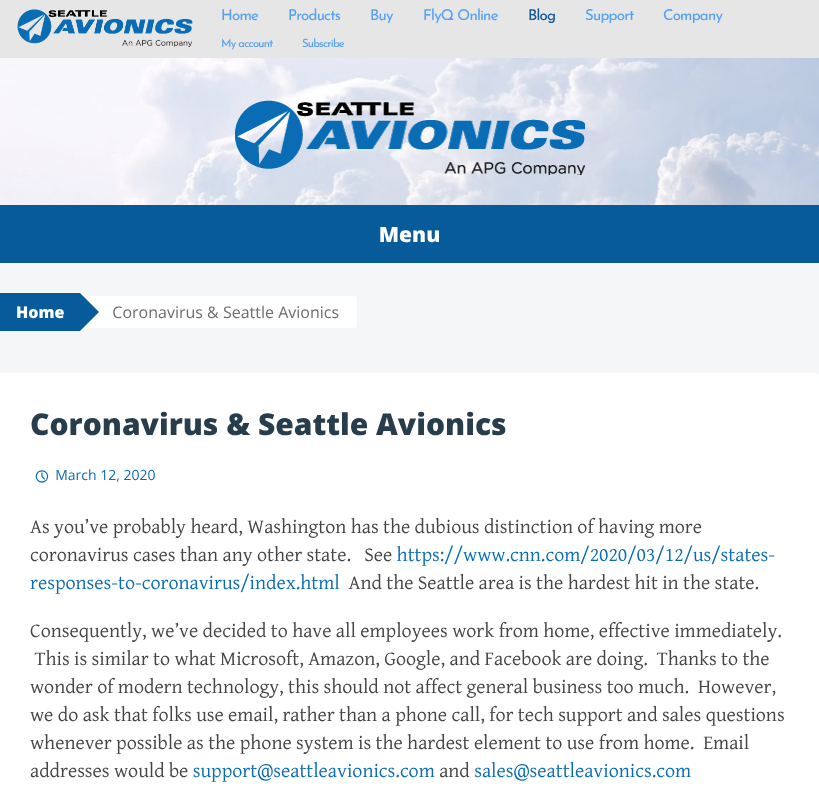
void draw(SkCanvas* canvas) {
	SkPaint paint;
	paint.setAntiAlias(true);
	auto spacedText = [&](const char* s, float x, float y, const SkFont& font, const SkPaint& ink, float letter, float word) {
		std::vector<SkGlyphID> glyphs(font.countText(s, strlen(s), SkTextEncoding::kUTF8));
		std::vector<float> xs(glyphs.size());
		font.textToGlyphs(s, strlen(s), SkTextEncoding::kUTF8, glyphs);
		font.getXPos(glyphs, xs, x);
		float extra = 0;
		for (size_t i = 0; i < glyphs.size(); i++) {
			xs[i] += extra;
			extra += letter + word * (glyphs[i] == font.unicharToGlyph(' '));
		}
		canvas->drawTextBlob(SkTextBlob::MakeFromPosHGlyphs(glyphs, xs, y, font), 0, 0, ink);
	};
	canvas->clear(0xffffffff);
	paint.setColor(0xffe6e6e6);
	canvas->drawRect(SkRect::MakeXYWH(0, 0, 819, 58), paint);
	canvas->drawImageRect(SkImages::DeferredFromEncodedData(SkData::MakeFromFileName("img1.png")), SkRect::MakeXYWH(17, 9, 176, 38), SkSamplingOptions());
	SkFont f1(fontMgr->matchFamilyStyle("Josefin Sans", SkFontStyle::Normal()), 15);
	f1.setSubpixel(true);
	paint.setColor(0xff57a1f3);
	spacedText("Home", 221, 20, f1, paint, -0.75, 0);
	spacedText("Products", 288, 20, f1, paint, -0.75, 0);
	spacedText("Buy", 370, 20, f1, paint, -0.75, 0);
	spacedText("FlyQ Online", 423, 20, f1, paint, -0.75, 0);
	paint.setColor(0xff115797);
	spacedText("Blog", 528, 20, f1, paint, -0.75, 0);
	paint.setColor(0xff57a1f3);
	spacedText("Support", 585, 20, f1, paint, -0.75, 0);
	spacedText("Company", 663, 20, f1, paint, -0.75, 0);
	SkFont f2(fontMgr->matchFamilyStyle("Josefin Sans", SkFontStyle::Normal()), 11.25);
	f2.setSubpixel(true);
	spacedText("My account", 221, 47, f2, paint, -0.75, 0);
	spacedText("Subscribe", 302, 47, f2, paint, -0.75, 0);
	canvas->drawImageRect(SkImages::DeferredFromEncodedData(SkData::MakeFromFileName("img2.png")), SkRect::MakeXYWH(0, 58, 819, 743), SkSamplingOptions());
}
